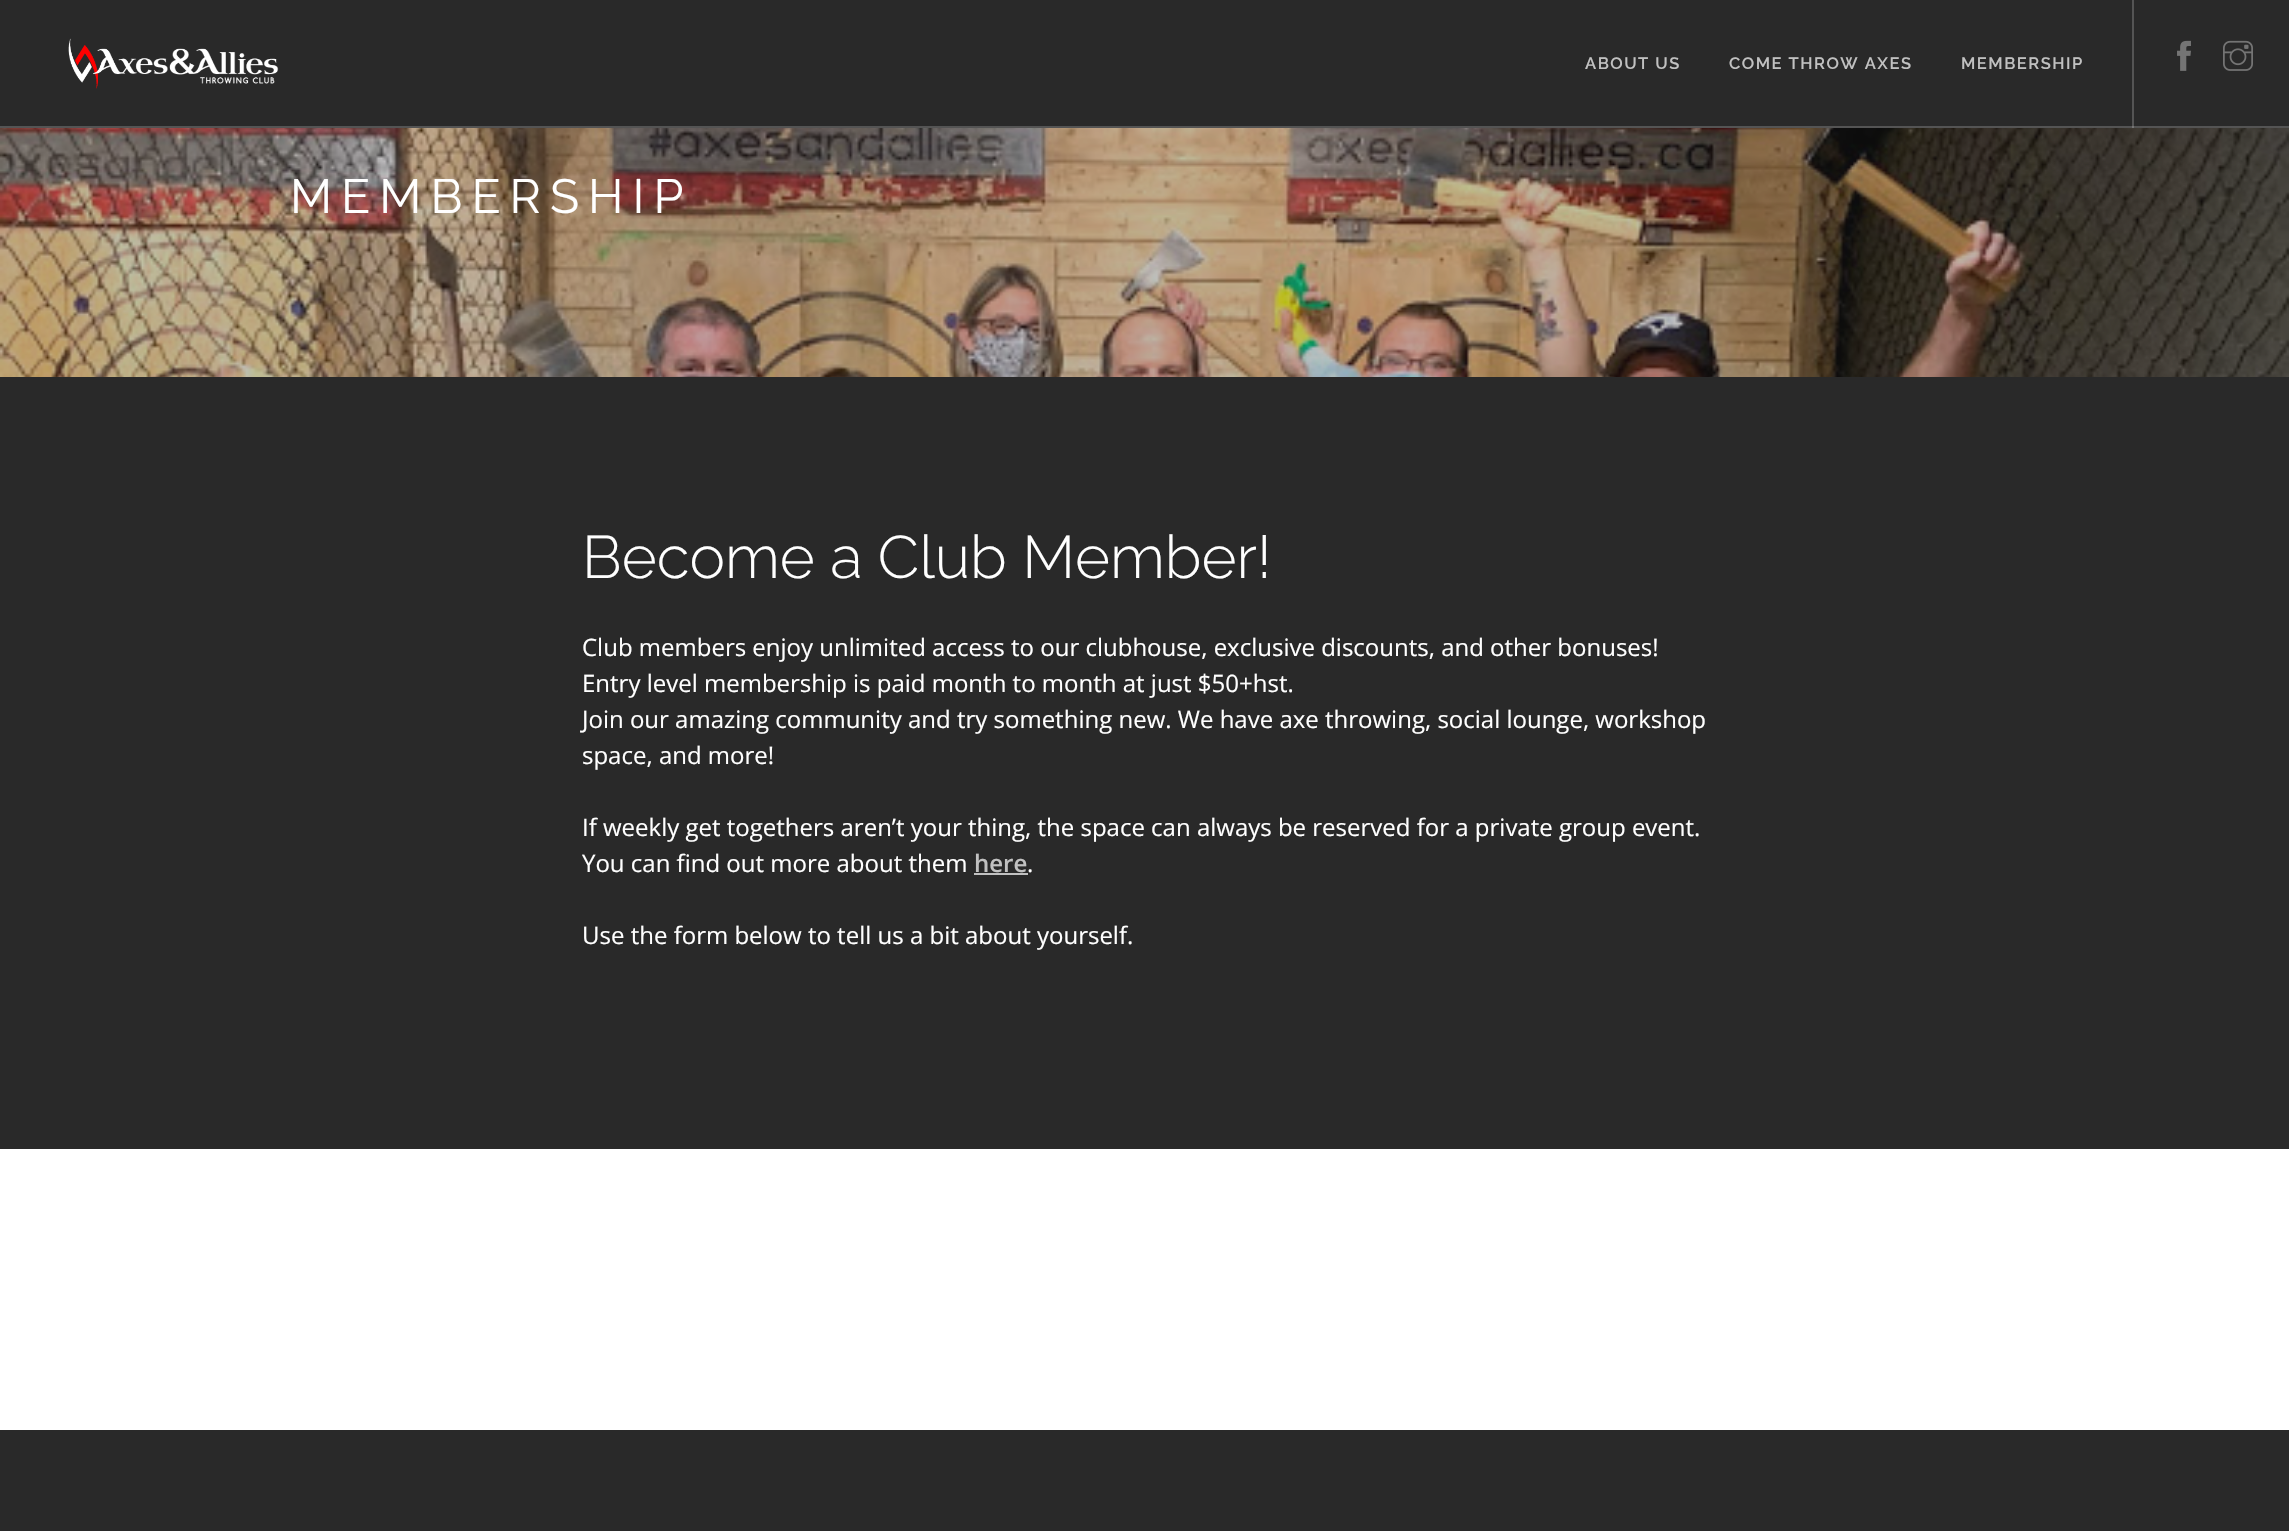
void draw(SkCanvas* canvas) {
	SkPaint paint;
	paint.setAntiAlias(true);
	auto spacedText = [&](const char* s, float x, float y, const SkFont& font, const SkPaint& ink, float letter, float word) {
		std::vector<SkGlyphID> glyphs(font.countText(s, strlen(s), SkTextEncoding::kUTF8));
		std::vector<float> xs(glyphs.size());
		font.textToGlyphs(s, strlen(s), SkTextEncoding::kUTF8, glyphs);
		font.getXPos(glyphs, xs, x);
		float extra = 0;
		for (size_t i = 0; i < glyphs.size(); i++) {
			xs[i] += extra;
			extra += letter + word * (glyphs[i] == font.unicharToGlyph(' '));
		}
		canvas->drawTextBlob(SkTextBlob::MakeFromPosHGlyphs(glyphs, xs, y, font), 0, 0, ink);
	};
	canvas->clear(0xff292929);
	paint.setColor(0xff545454);
	canvas->drawRect(SkRect::MakeXYWH(0, 126, 2289, 2), paint);
	canvas->drawImageRect(SkImages::DeferredFromEncodedData(SkData::MakeFromFileName("img1.png")), SkRect::MakeXYWH(68, 38, 211, 51), SkSamplingOptions());
	SkFont f1(fontMgr->matchFamilyStyle("Raleway", SkFontStyle(600, SkFontStyle::kNormal_Width, SkFontStyle::kUpright_Slant)), 16.5);
	f1.setSubpixel(true);
	paint.setColor(0xffc1c1c1);
	spacedText("ABOUT US", 1585, 69, f1, paint, 1.5, 0);
	spacedText("COME THROW AXES", 1729, 69, f1, paint, 1.5, 0);
	spacedText("MEMBERSHIP", 1961, 69, f1, paint, 1.5, 0);
	paint.setColor(0x33ffffff);
	canvas->drawRect(SkRect::MakeXYWH(2132, 0, 2, 128), paint);
	canvas->drawImageRect(SkImages::DeferredFromEncodedData(SkData::MakeFromFileName("img2.png")), SkRect::MakeXYWH(2177, 40, 14, 31), SkSamplingOptions());
	canvas->drawImageRect(SkImages::DeferredFromEncodedData(SkData::MakeFromFileName("img3.png")), SkRect::MakeXYWH(2223, 40, 30, 31), SkSamplingOptions());
	canvas->drawImageRect(SkImages::DeferredFromEncodedData(SkData::MakeFromFileName("img4.png")), SkRect::MakeXYWH(0, 128, 2289, 249), SkSamplingOptions());
	SkFont f2(fontMgr->matchFamilyStyle("Raleway", SkFontStyle::Normal()), 48);
	f2.setSubpixel(true);
	paint.setColor(0xffffffff);
	spacedText("MEMBERSHIP", 290, 213, f2, paint, 9, 0);
	SkFont f3(fontMgr->matchFamilyStyle("Raleway", SkFontStyle(300, SkFontStyle::kNormal_Width, SkFontStyle::kUpright_Slant)), 60);
	f3.setSubpixel(true);
	canvas->drawString("Become a Club Member!", 582, 578, f3, paint);
	SkFont f4(fontMgr->matchFamilyStyle("Open Sans", SkFontStyle::Normal()), 24);
	f4.setSubpixel(true);
	canvas->drawString("Club members enjoy unlimited access to our clubhouse, exclusive discounts, and other bonuses!", 582, 656, f4, paint);
	canvas->drawString("Entry level membership is paid month to month at just $50+hst.", 582, 692, f4, paint);
	canvas->drawString("Join our amazing community and try something new. We have axe throwing, social lounge, workshop", 582, 728, f4, paint);
	canvas->drawString("space, and more!", 582, 764, f4, paint);
	canvas->drawString("If weekly get togethers aren’t your thing, the space can always be reserved for a private group event.", 582, 836, f4, paint);
	canvas->drawString("You can find out more about them", 582, 872, f4, paint);
	SkFont f5(fontMgr->matchFamilyStyle("Open Sans", SkFontStyle(600, SkFontStyle::kNormal_Width, SkFontStyle::kUpright_Slant)), 24);
	f5.setSubpixel(true);
	paint.setColor(0xffc1c1c1);
	canvas->drawString("here", 974, 872, f5, paint);
	canvas->drawRect(SkRect::MakeXYWH(974, 873, 54, 2), paint);
	paint.setColor(0xffffffff);
	canvas->drawString(".", 1027, 872, f4, paint);
	canvas->drawString("Use the form below to tell us a bit about yourself.", 582, 944, f4, paint);
	canvas->drawRect(SkRect::MakeXYWH(0, 1149, 2289, 281), paint);
}
